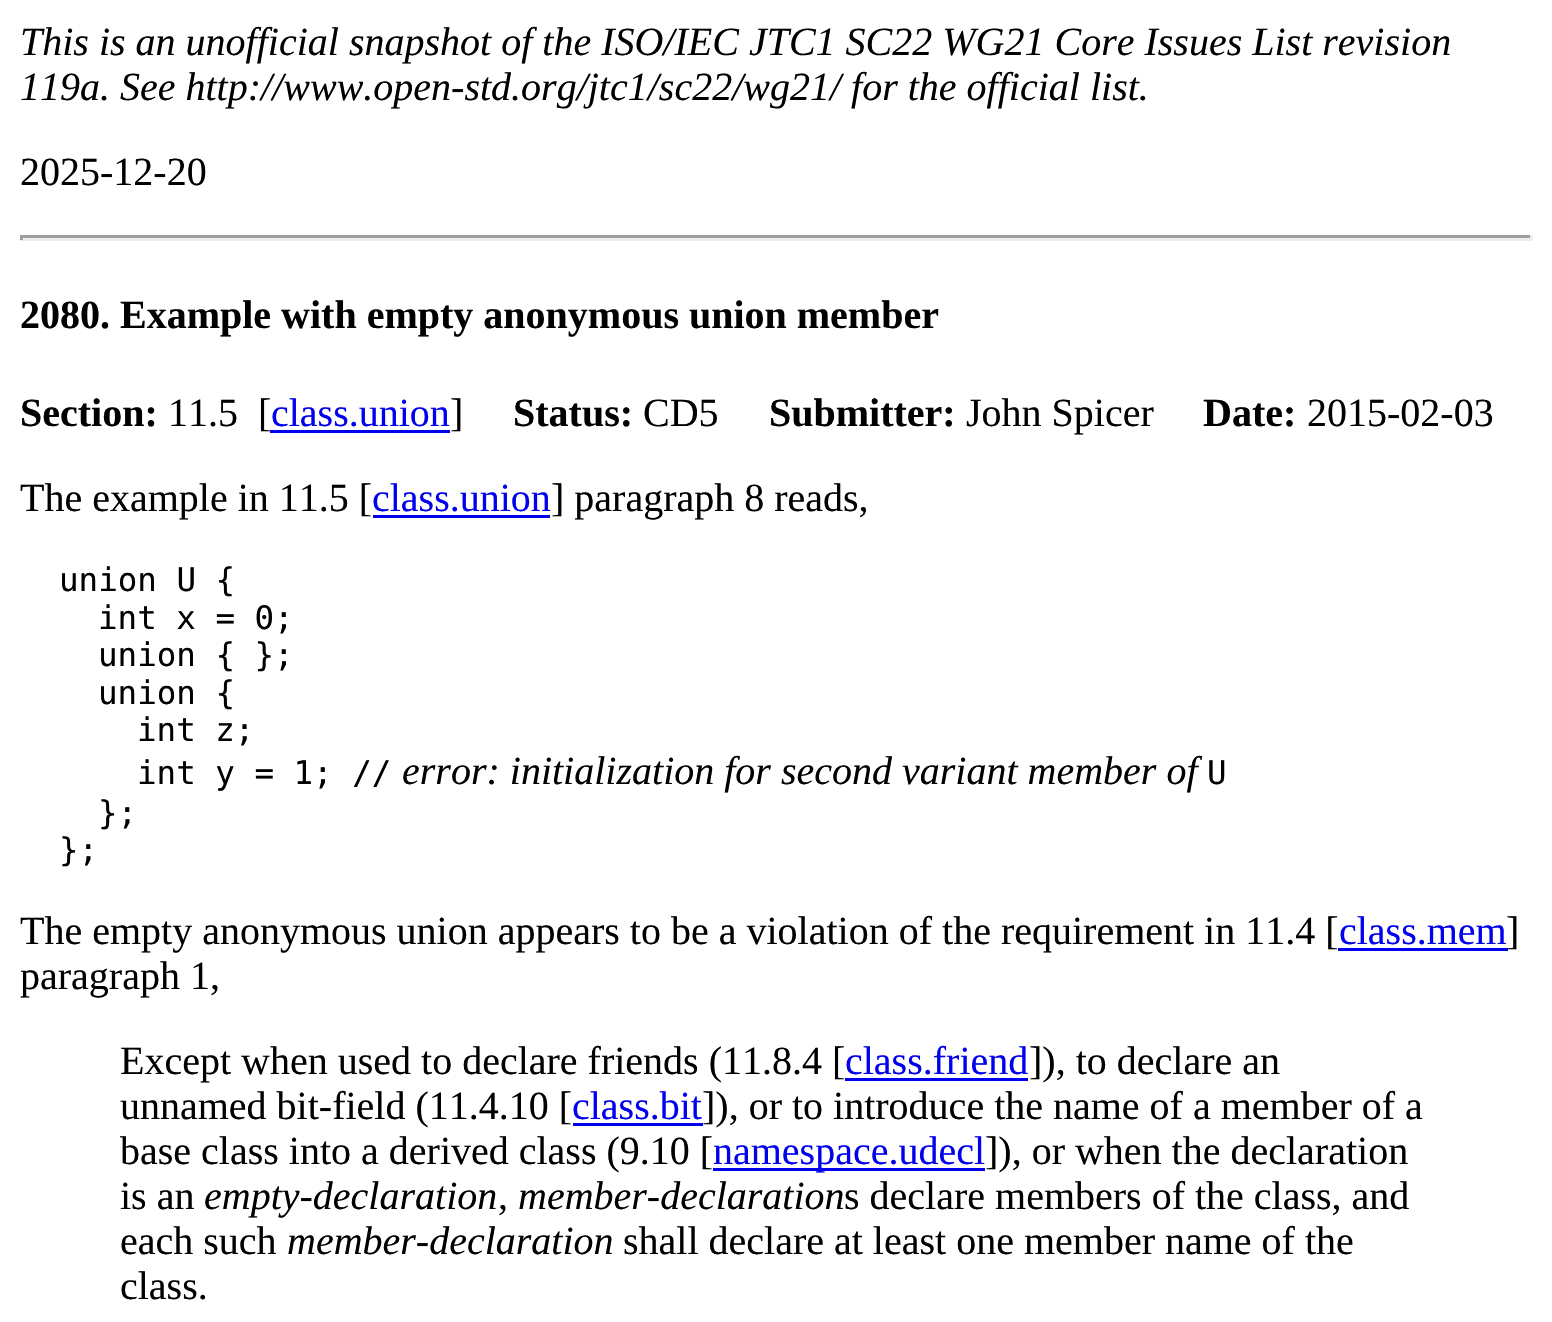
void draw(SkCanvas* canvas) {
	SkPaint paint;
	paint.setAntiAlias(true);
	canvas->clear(0xffffffff);
	SkFont f1(fontMgr->matchFamilyStyle("Liberation Serif", SkFontStyle::Italic()), 40);
	f1.setSubpixel(true);
	paint.setColor(0xff000000);
	canvas->drawString("This is an unofficial snapshot of the ISO/IEC JTC1 SC22 WG21 Core Issues List revision", 20, 55, f1, paint);
	canvas->drawString("119a. See http://www.open-std.org/jtc1/sc22/wg21/ for the official list.", 20, 100, f1, paint);
	SkFont f2(fontMgr->matchFamilyStyle("Liberation Serif", SkFontStyle::Normal()), 40);
	f2.setSubpixel(true);
	canvas->drawString("2025-12-20", 20, 185, f2, paint);
	paint.setColor(0xff9f9f9f);
	canvas->drawRect(SkRect::MakeXYWH(20, 235, 1513, 3), paint);
	paint.setColor(0xffeeeeee);
	canvas->drawRect(SkRect::MakeXYWH(1530, 235, 3, 5), paint);
	canvas->drawRect(SkRect::MakeXYWH(20, 238, 1513, 3), paint);
	paint.setColor(0xff9f9f9f);
	canvas->drawRect(SkRect::MakeXYWH(20, 235, 3, 5), paint);
	SkFont f3(fontMgr->matchFamilyStyle("Liberation Serif", SkFontStyle::Bold()), 40);
	f3.setSubpixel(true);
	paint.setColor(0xff000000);
	canvas->drawString("2080. Example with empty anonymous union member", 20, 328, f3, paint);
	canvas->drawString("Section:", 20, 426, f3, paint);
	canvas->drawString("11.5  [", 168, 426, f2, paint);
	paint.setColor(0xff0000ee);
	canvas->drawString("class.union", 271, 426, f2, paint);
	canvas->drawRect(SkRect::MakeXYWH(270, 430, 180, 3), paint);
	paint.setColor(0xff000000);
	canvas->drawString("]", 450, 426, f2, paint);
	canvas->drawString("Status:", 513, 426, f3, paint);
	canvas->drawString("CD5", 643, 426, f2, paint);
	canvas->drawString("Submitter:", 769, 426, f3, paint);
	canvas->drawString("John Spicer", 966, 426, f2, paint);
	canvas->drawString("Date:", 1203, 426, f3, paint);
	canvas->drawString("2015-02-03", 1307, 426, f2, paint);
	canvas->drawString("The example in 11.5 [", 20, 511, f2, paint);
	paint.setColor(0xff0000ee);
	canvas->drawString("class.union", 372, 511, f2, paint);
	canvas->drawRect(SkRect::MakeXYWH(373, 515, 177, 3), paint);
	paint.setColor(0xff000000);
	canvas->drawString("] paragraph 8 reads,", 551, 511, f2, paint);
	SkFont f4(fontMgr->matchFamilyStyle("DejaVu Sans Mono", SkFontStyle::Normal()), 32.5);
	f4.setSubpixel(true);
	canvas->drawString("union U {", 59, 591, f4, paint);
	canvas->drawString("int x = 0;", 98, 629, f4, paint);
	canvas->drawString("union { };", 98, 666, f4, paint);
	canvas->drawString("union {", 98, 704, f4, paint);
	canvas->drawString("int z;", 137, 741, f4, paint);
	canvas->drawString("int y = 1; //", 137, 784, f4, paint);
	canvas->drawString("error: initialization for second variant member of", 402, 784, f1, paint);
	canvas->drawString("U", 1207, 784, f4, paint);
	canvas->drawString("};", 98, 824, f4, paint);
	canvas->drawString("};", 59, 861, f4, paint);
	canvas->drawString("The empty anonymous union appears to be a violation of the requirement in 11.4 [", 20, 944, f2, paint);
	paint.setColor(0xff0000ee);
	canvas->drawString("class.mem", 1339, 944, f2, paint);
	canvas->drawRect(SkRect::MakeXYWH(1338, 948, 170, 3), paint);
	paint.setColor(0xff000000);
	canvas->drawString("]", 1506, 944, f2, paint);
	canvas->drawString("paragraph 1,", 20, 989, f2, paint);
	canvas->drawString("Except when used to declare friends (11.8.4 [", 120, 1074, f2, paint);
	paint.setColor(0xff0000ee);
	canvas->drawString("class.friend", 845, 1074, f2, paint);
	canvas->drawRect(SkRect::MakeXYWH(845, 1078, 183, 3), paint);
	paint.setColor(0xff000000);
	canvas->drawString("]), to declare an", 1029, 1074, f2, paint);
	canvas->drawString("unnamed bit-field (11.4.10 [", 120, 1119, f2, paint);
	paint.setColor(0xff0000ee);
	canvas->drawString("class.bit", 572, 1119, f2, paint);
	canvas->drawRect(SkRect::MakeXYWH(573, 1123, 130, 3), paint);
	paint.setColor(0xff000000);
	canvas->drawString("]), or to introduce the name of a member of a", 702, 1119, f2, paint);
	canvas->drawString("base class into a derived class (9.10 [", 120, 1164, f2, paint);
	paint.setColor(0xff0000ee);
	canvas->drawRect(SkRect::MakeXYWH(713, 1168, 272, 3), paint);
	canvas->drawString("namespace.udecl", 713, 1164, f2, paint);
	paint.setColor(0xff000000);
	canvas->drawString("]), or when the declaration", 985, 1164, f2, paint);
	canvas->drawString("is an", 120, 1209, f2, paint);
	canvas->drawString("empty-declaration", 204, 1209, f1, paint);
	canvas->drawString(",", 498, 1209, f2, paint);
	canvas->drawString("member-declaration", 518, 1209, f1, paint);
	canvas->drawString("s declare members of the class, and", 844, 1209, f2, paint);
	canvas->drawString("each such", 120, 1254, f2, paint);
	canvas->drawString("member-declaration", 287, 1254, f1, paint);
	canvas->drawString("shall declare at least one member name of the", 623, 1254, f2, paint);
	canvas->drawString("class.", 120, 1299, f2, paint);
}
